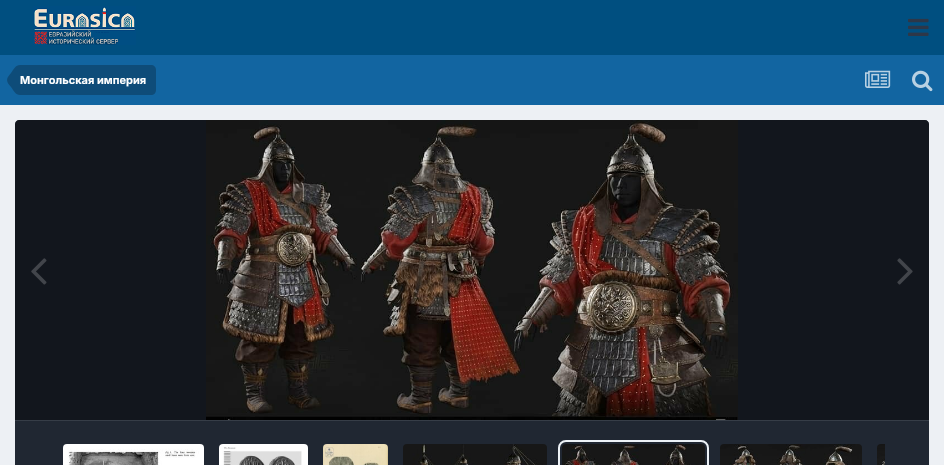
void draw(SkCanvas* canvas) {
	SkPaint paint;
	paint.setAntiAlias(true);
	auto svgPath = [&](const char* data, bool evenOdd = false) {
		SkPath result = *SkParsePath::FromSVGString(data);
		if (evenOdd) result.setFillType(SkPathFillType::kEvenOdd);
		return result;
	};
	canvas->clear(0xffedf0f4);
	paint.setColor(0xff004f80);
	canvas->drawRect(SkRect::MakeXYWH(0, 0, 944, 55), paint);
	canvas->drawImageRect(SkImages::DeferredFromEncodedData(SkData::MakeFromFileName("img1.png")), SkRect::MakeXYWH(33, 6, 103, 39), SkSamplingOptions());
	canvas->drawImageRect(SkImages::DeferredFromEncodedData(SkData::MakeFromFileName("img2.png")), SkRect::MakeXYWH(908, 18, 21, 18), SkSamplingOptions());
	paint.setColor(0xff1265a1);
	canvas->drawRect(SkRect::MakeXYWH(0, 55, 944, 50), paint);
	paint.setColor(0xff0e4c79);
	canvas->drawPath(svgPath("M20 65H151C154 65 156 67 156 70V90C156 93 154 95 151 95H20Z"), paint);
	canvas->drawPath(svgPath("M20 80V95C15.5 95 13.5 90.5 11 87C9.5 85 7 83 7 80ZM20 80H7C7 77 9.5 75 11 73C13.5 69.5 15.5 65 20 65Z"), paint);
	SkFont f1(fontMgr->matchFamilyStyle("Inter", SkFontStyle::Bold()), 11);
	f1.setSubpixel(true);
	paint.setColor(0xffffffff);
	canvas->drawString("Монгольская империя", 20, 84, f1, paint);
	canvas->drawImageRect(SkImages::DeferredFromEncodedData(SkData::MakeFromFileName("img3.png")), SkRect::MakeXYWH(865, 70, 26, 18), SkSamplingOptions());
	canvas->drawImageRect(SkImages::DeferredFromEncodedData(SkData::MakeFromFileName("img4.png")), SkRect::MakeXYWH(912, 70, 21, 22), SkSamplingOptions());
	paint.setColor(0xff2d3748);
	canvas->drawPath(svgPath("M19 120H925C927 120 929 122 929 124V420H15V124C15 122 17 120 19 120Z"), paint);
	paint.setColor(0x99000000);
	canvas->drawPath(svgPath("M19 120H925C927 120 929 122 929 124V420H15V124C15 122 17 120 19 120Z"), paint);
	canvas->drawImageRect(SkImages::DeferredFromEncodedData(SkData::MakeFromFileName("img5.png")), SkRect::MakeXYWH(206, 120, 532, 300), SkSamplingOptions());
	canvas->drawImageRect(SkImages::DeferredFromEncodedData(SkData::MakeFromFileName("img6.png")), SkRect::MakeXYWH(31, 258, 16, 27), SkSamplingOptions());
	canvas->drawImageRect(SkImages::DeferredFromEncodedData(SkData::MakeFromFileName("img7.png")), SkRect::MakeXYWH(897, 258, 16, 27), SkSamplingOptions());
	paint.setColor(0xff202732);
	canvas->drawRect(SkRect::MakeXYWH(15, 421, 914, 44), paint);
	paint.setColor(0xff363d47);
	canvas->drawRect(SkRect::MakeXYWH(15, 420, 914, 1), paint);
	canvas->drawImageRect(SkImages::DeferredFromEncodedData(SkData::MakeFromFileName("img8.png")), SkRect::MakeXYWH(63, 444, 141, 21), SkSamplingOptions());
	canvas->drawImageRect(SkImages::DeferredFromEncodedData(SkData::MakeFromFileName("img9.png")), SkRect::MakeXYWH(219, 444, 89, 21), SkSamplingOptions());
	canvas->drawImageRect(SkImages::DeferredFromEncodedData(SkData::MakeFromFileName("img10.png")), SkRect::MakeXYWH(323, 444, 65, 21), SkSamplingOptions());
	canvas->drawImageRect(SkImages::DeferredFromEncodedData(SkData::MakeFromFileName("img11.png")), SkRect::MakeXYWH(403, 444, 144, 21), SkSamplingOptions());
	paint.setStroke(true);
	paint.setStrokeWidth(2);
	paint.setColor(0xffedf2f7);
	canvas->drawRoundRect(SkRect::MakeXYWH(559, 441, 149, 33), 7, 7, paint);
	canvas->drawImageRect(SkImages::DeferredFromEncodedData(SkData::MakeFromFileName("img12.png")), SkRect::MakeXYWH(562, 444, 143, 21), SkSamplingOptions());
	canvas->drawImageRect(SkImages::DeferredFromEncodedData(SkData::MakeFromFileName("img13.png")), SkRect::MakeXYWH(720, 444, 142, 21), SkSamplingOptions());
	canvas->drawImageRect(SkImages::DeferredFromEncodedData(SkData::MakeFromFileName("img14.png")), SkRect::MakeXYWH(877, 444, 8, 21), SkSamplingOptions());
}
